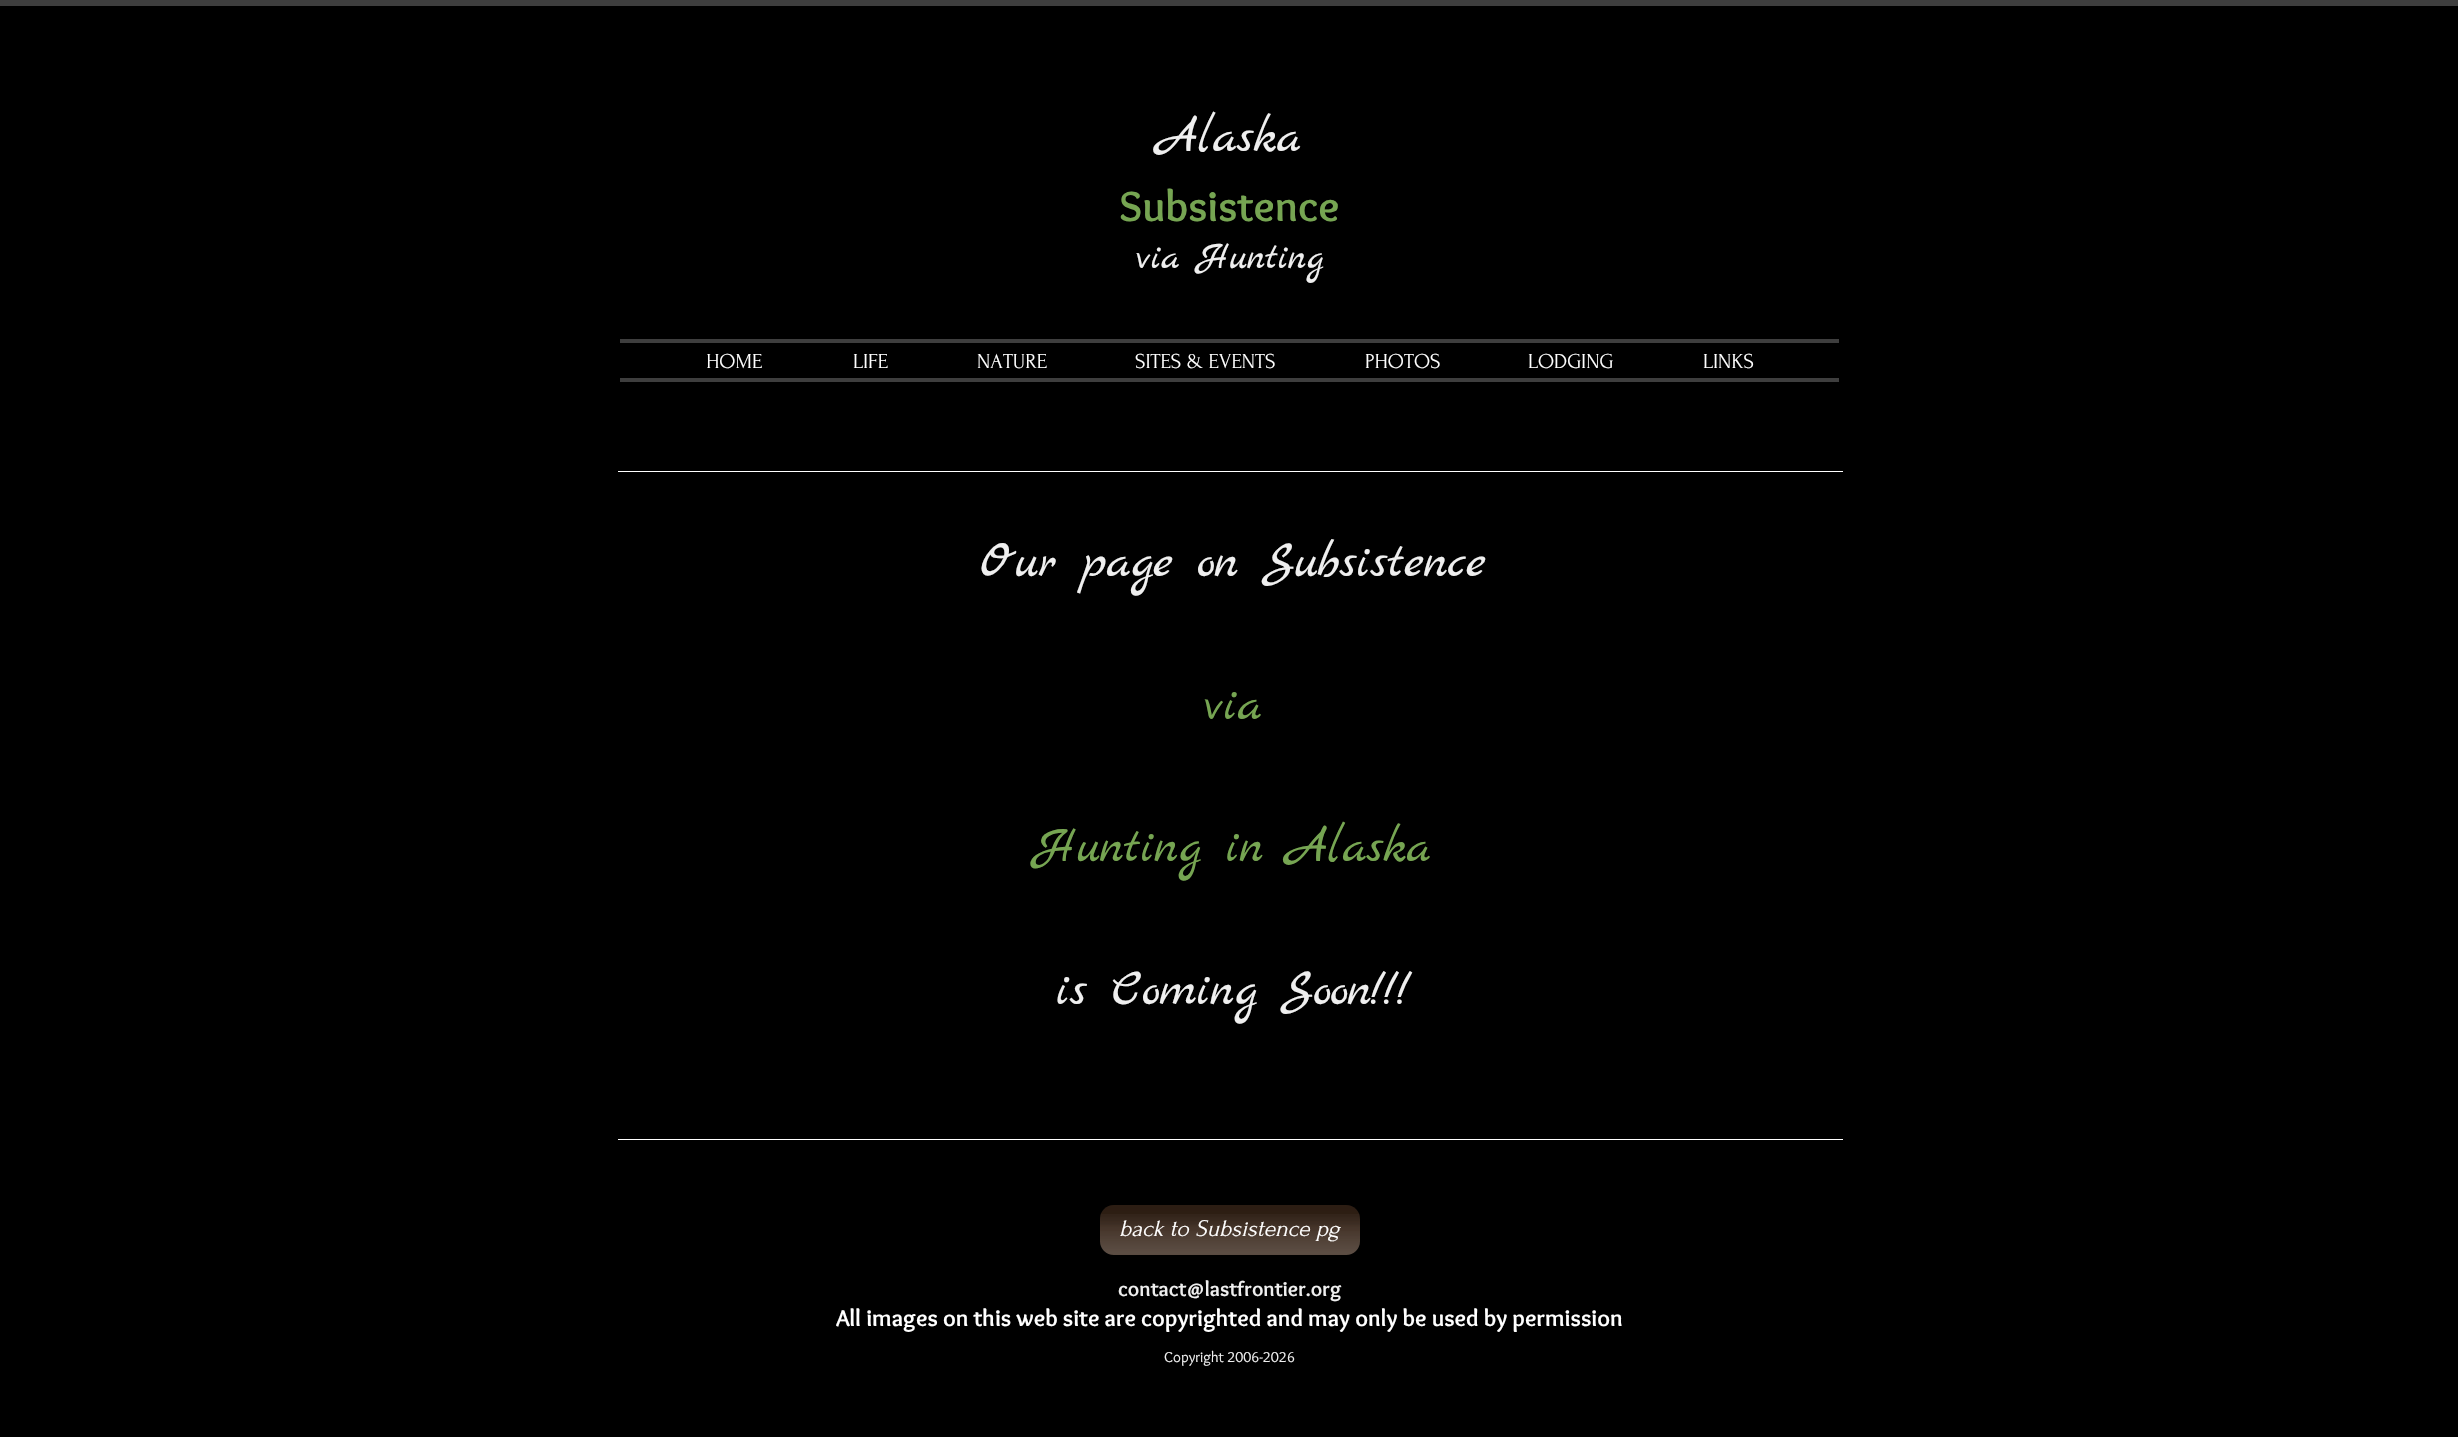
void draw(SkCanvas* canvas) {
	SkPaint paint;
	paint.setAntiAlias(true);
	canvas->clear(0xff000000);
	paint.setColor(0xff3e3e3e);
	canvas->drawRect(SkRect::MakeXYWH(0, 0, 2458, 6), paint);
	SkFont f1(fontMgr->matchFamilyStyle("Marck Script", SkFontStyle::Normal()), 51.25);
	f1.setSubpixel(true);
	paint.setColor(0xffefefef);
	canvas->drawString("Alaska", 1158, 151, f1, paint);
	SkFont f2(fontMgr->matchFamilyStyle("Overlock", SkFontStyle::Bold()), 43.75);
	f2.setSubpixel(true);
	paint.setColor(0xff76a552);
	canvas->drawString("Subsistence", 1119, 221, f2, paint);
	SkFont f3(fontMgr->matchFamilyStyle("Marck Script", SkFontStyle::Normal()), 38.75);
	f3.setSubpixel(true);
	paint.setColor(0xffefefef);
	canvas->drawString("via Hunting", 1136, 268, f3, paint);
	paint.setColor(0xff3e3e3e);
	canvas->drawRect(SkRect::MakeXYWH(620, 339, 1219, 4), paint);
	SkFont f4(fontMgr->matchFamilyStyle("Forum", SkFontStyle::Normal()), 21.25);
	f4.setSubpixel(true);
	paint.setColor(0xffffffff);
	canvas->drawString("HOME", 706, 368, f4, paint);
	canvas->drawString("LIFE", 853, 368, f4, paint);
	canvas->drawString("NATURE", 977, 368, f4, paint);
	canvas->drawString("SITES & EVENTS", 1135, 368, f4, paint);
	canvas->drawString("PHOTOS", 1365, 368, f4, paint);
	canvas->drawString("LODGING", 1528, 368, f4, paint);
	canvas->drawString("LINKS", 1703, 368, f4, paint);
	paint.setColor(0xff3e3e3e);
	canvas->drawRect(SkRect::MakeXYWH(620, 378, 1219, 4), paint);
	paint.setColor(0xffffffff);
	canvas->drawRect(SkRect::MakeXYWH(618, 471, 1225, 1), paint);
	paint.setColor(0xffefefef);
	canvas->drawString("Our page on Subsistence", 980, 576, f1, paint);
	paint.setColor(0xff76a552);
	canvas->drawString("via", 1204, 719, f1, paint);
	canvas->drawString("Hunting in Alaska", 1035, 861, f1, paint);
	paint.setColor(0xffefefef);
	canvas->drawString("is Coming Soon!!!", 1056, 1004, f1, paint);
	paint.setColor(0xffffffff);
	canvas->drawRect(SkRect::MakeXYWH(618, 1139, 1225, 1), paint);
	paint.setColor(0xff342216);
	canvas->drawRoundRect(SkRect::MakeXYWH(1100, 1205, 260, 50), 14, 14, paint);
	canvas->drawImageRect(SkImages::DeferredFromEncodedData(SkData::MakeFromFileName("img1.png")), SkRect::MakeXYWH(1100, 1205, 260, 20), SkSamplingOptions());
	canvas->drawImageRect(SkImages::DeferredFromEncodedData(SkData::MakeFromFileName("img2.png")), SkRect::MakeXYWH(1100, 1214, 260, 41), SkSamplingOptions());
	SkFont f5(fontMgr->matchFamilyStyle("Forum", SkFontStyle::Italic()), 23.75);
	f5.setSubpixel(true);
	paint.setColor(0xffffffff);
	canvas->drawString("back to Subsistence pg", 1119, 1236, f5, paint);
	SkFont f6(fontMgr->matchFamilyStyle("Overlock", SkFontStyle::Bold()), 21.25);
	f6.setSubpixel(true);
	paint.setColor(0xffefefef);
	canvas->drawString("contact@lastfrontier.org", 1118, 1296, f6, paint);
	SkFont f7(fontMgr->matchFamilyStyle("Overlock", SkFontStyle::Bold()), 23.75);
	f7.setSubpixel(true);
	paint.setColor(0xffffffff);
	canvas->drawString("All images on this web site are copyrighted and may only be used by permission", 836, 1326, f7, paint);
	SkFont f8(fontMgr->matchFamilyStyle("Overlock", SkFontStyle::Normal()), 15);
	f8.setSubpixel(true);
	paint.setColor(0xffefefef);
	canvas->drawString("Copyright 2006-2026", 1164, 1362, f8, paint);
}
